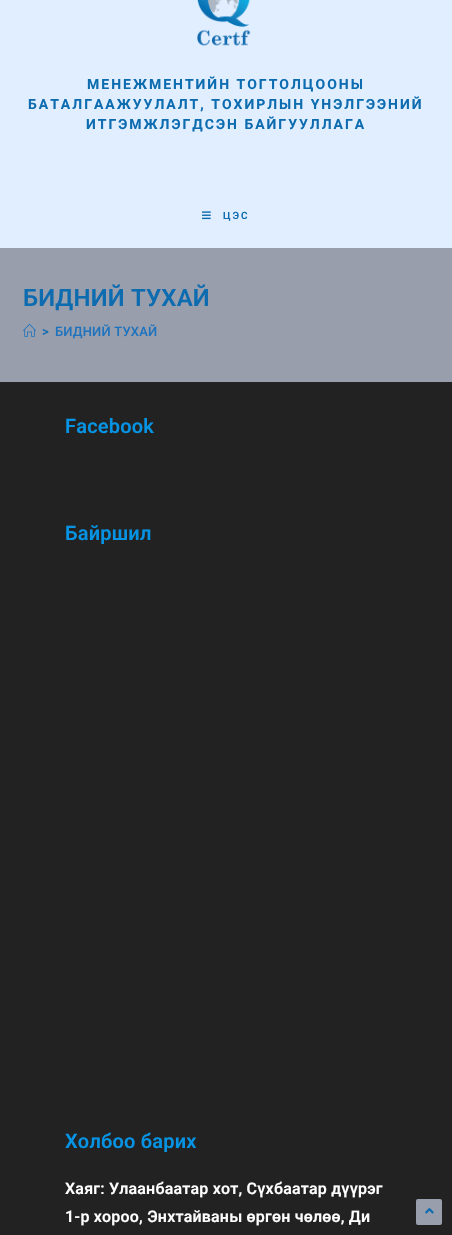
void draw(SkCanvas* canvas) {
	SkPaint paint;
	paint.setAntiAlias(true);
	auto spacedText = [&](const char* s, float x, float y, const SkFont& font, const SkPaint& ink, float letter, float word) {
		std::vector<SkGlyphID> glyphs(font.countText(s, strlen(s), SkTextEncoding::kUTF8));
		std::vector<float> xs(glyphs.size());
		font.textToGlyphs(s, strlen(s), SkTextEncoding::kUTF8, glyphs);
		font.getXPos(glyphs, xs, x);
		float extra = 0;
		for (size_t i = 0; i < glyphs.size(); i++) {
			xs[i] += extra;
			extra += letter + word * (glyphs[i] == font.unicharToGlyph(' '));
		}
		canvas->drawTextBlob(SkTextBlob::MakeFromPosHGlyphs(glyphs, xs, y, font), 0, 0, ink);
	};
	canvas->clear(0xff989eac);
	paint.setColor(0xffe0eeff);
	canvas->drawRect(SkRect::MakeXYWH(0, 0, 452, 248), paint);
	canvas->drawImageRect(SkImages::DeferredFromEncodedData(SkData::MakeFromFileName("img1.png")), SkRect::MakeXYWH(197, 0, 54, 46), SkSamplingOptions());
	SkFont f1(fontMgr->matchFamilyStyle("Roboto", SkFontStyle::Bold()), 14);
	f1.setSubpixel(true);
	paint.setColor(0xff0d6cb0);
	spacedText("МЕНЕЖМЕНТИЙН ТОГТОЛЦООНЫ", 87, 89, f1, paint, 2, 0);
	spacedText("БАТАЛГААЖУУЛАЛТ, ТОХИРЛЫН ҮНЭЛГЭЭНИЙ", 28, 109, f1, paint, 2, 0);
	spacedText("ИТГЭМЖЛЭГДСЭН БАЙГУУЛЛАГА", 86, 129, f1, paint, 2, 0);
	canvas->drawImageRect(SkImages::DeferredFromEncodedData(SkData::MakeFromFileName("img2.png")), SkRect::MakeXYWH(202, 211, 9, 9), SkSamplingOptions());
	SkFont f2(fontMgr->matchFamilyStyle("Roboto", SkFontStyle(600, SkFontStyle::kNormal_Width, SkFontStyle::kUpright_Slant)), 10);
	f2.setSubpixel(true);
	spacedText("ЦЭС", 223, 219, f2, paint, 2, 0);
	SkFont f3(fontMgr->matchFamilyStyle("Roboto", SkFontStyle(600, SkFontStyle::kNormal_Width, SkFontStyle::kUpright_Slant)), 24);
	f3.setSubpixel(true);
	spacedText("БИДНИЙ ТУХАЙ", 23, 306, f3, paint, 0.2, 0);
	canvas->drawImageRect(SkImages::DeferredFromEncodedData(SkData::MakeFromFileName("img3.png")), SkRect::MakeXYWH(23, 323, 13, 14), SkSamplingOptions());
	SkFont f4(fontMgr->matchFamilyStyle("Roboto", SkFontStyle(500, SkFontStyle::kNormal_Width, SkFontStyle::kUpright_Slant)), 13);
	f4.setSubpixel(true);
	spacedText(">", 42, 336, f4, paint, 0.2, 0);
	paint.setColor(0xff1e73be);
	spacedText("БИДНИЙ ТУХАЙ", 55, 336, f4, paint, 0.2, 0);
	paint.setColor(0xff222222);
	canvas->drawRect(SkRect::MakeXYWH(0, 382, 452, 853), paint);
	SkFont f5(fontMgr->matchFamilyStyle("Roboto", SkFontStyle(600, SkFontStyle::kNormal_Width, SkFontStyle::kUpright_Slant)), 20);
	f5.setSubpixel(true);
	paint.setColor(0xff0693e3);
	spacedText("Facebook", 65, 433, f5, paint, 0.2, 0);
	spacedText("Байршил", 65, 540, f5, paint, 0.2, 0);
	spacedText("Холбоо барих", 65, 1148, f5, paint, 0.2, 0);
	SkFont f6(fontMgr->matchFamilyStyle("Roboto", SkFontStyle(600, SkFontStyle::kNormal_Width, SkFontStyle::kUpright_Slant)), 16);
	f6.setSubpixel(true);
	paint.setColor(0xffffffff);
	spacedText("Хаяг: Улаанбаатар хот, Сүхбаатар дүүрэг", 65, 1194, f6, paint, 0.2, 0);
	spacedText("1-р хороо, Энхтайваны өргөн чөлөө, Ди", 65, 1222, f6, paint, 0.2, 0);
	paint.setColor(0xff989eac);
	canvas->drawRoundRect(SkRect::MakeXYWH(416, 1199, 26, 26), 2, 2, paint);
	canvas->drawImageRect(SkImages::DeferredFromEncodedData(SkData::MakeFromFileName("img4.png")), SkRect::MakeXYWH(425, 1208, 9, 6), SkSamplingOptions());
}
